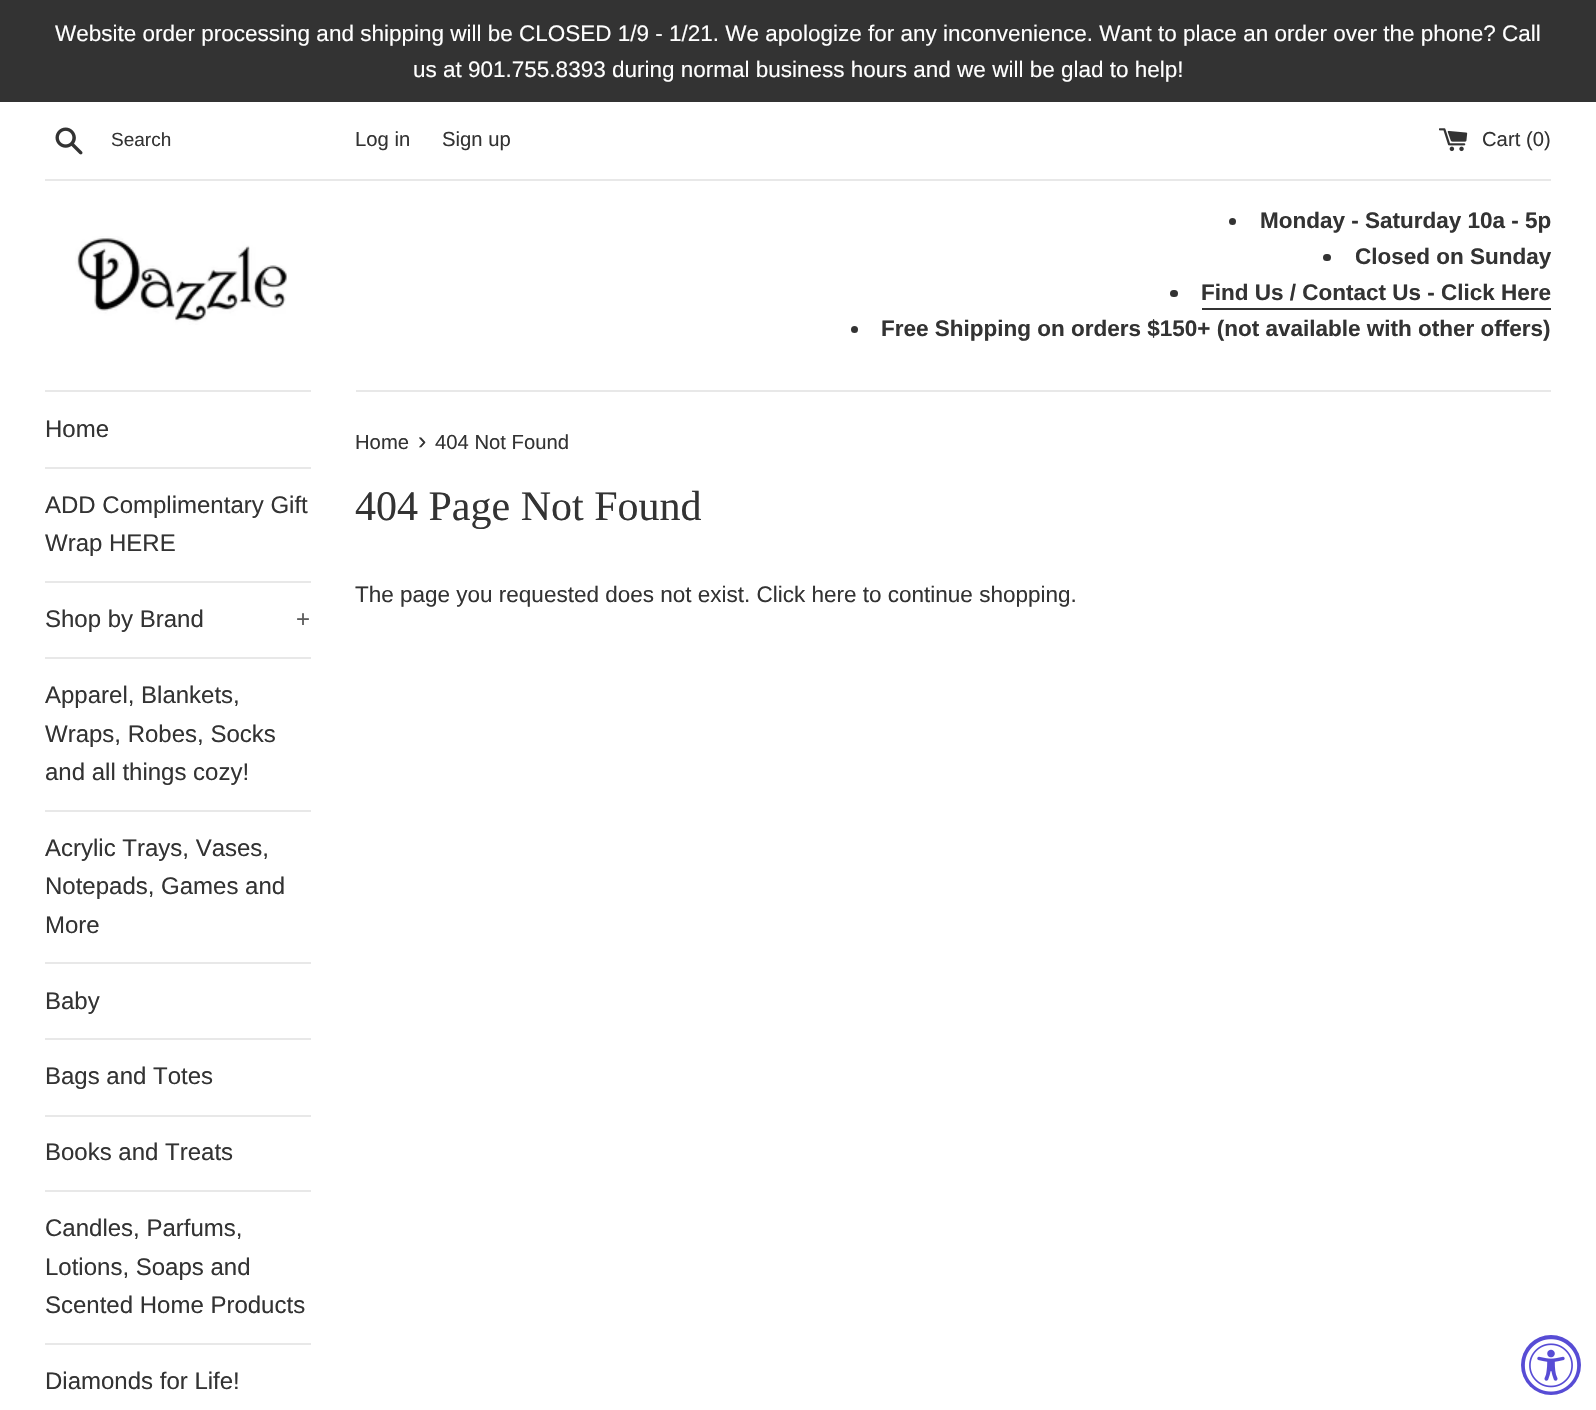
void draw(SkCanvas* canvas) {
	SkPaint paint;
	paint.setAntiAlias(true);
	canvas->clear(0xffffffff);
	paint.setColor(0xff333333);
	canvas->drawRect(SkRect::MakeXYWH(0, 0, 1596, 102), paint);
	SkFont f1(fontMgr->matchFamilyStyle("Liberation Sans", SkFontStyle::Normal()), 22.5);
	f1.setSubpixel(true);
	paint.setColor(0xffffffff);
	canvas->drawString("Website order processing and shipping will be CLOSED 1/9 - 1/21. We apologize for any inconvenience. Want to place an order over the phone? Call", 55, 41, f1, paint);
	canvas->drawString("us at 901.755.8393 during normal business hours and we will be glad to help!", 413, 77, f1, paint);
	canvas->drawImageRect(SkImages::DeferredFromEncodedData(SkData::MakeFromFileName("img1.png")), SkRect::MakeXYWH(55, 127, 28, 28), SkSamplingOptions());
	SkFont f2(fontMgr->matchFamilyStyle("Liberation Sans", SkFontStyle::Normal()), 19);
	f2.setSubpixel(true);
	paint.setColor(0xff333333);
	canvas->drawString("Search", 111, 146, f2, paint);
	SkFont f3(fontMgr->matchFamilyStyle("Liberation Sans", SkFontStyle::Normal()), 20.25);
	f3.setSubpixel(true);
	canvas->drawString("Log in", 355, 146, f3, paint);
	canvas->drawString("Sign up", 442, 146, f3, paint);
	canvas->drawImageRect(SkImages::DeferredFromEncodedData(SkData::MakeFromFileName("img2.png")), SkRect::MakeXYWH(1439, 128, 29, 24), SkSamplingOptions());
	canvas->drawString("Cart (0)", 1482, 146, f3, paint);
	paint.setColor(0xffe8e8e8);
	canvas->drawRect(SkRect::MakeXYWH(45, 179, 1506, 2), paint);
	canvas->drawImageRect(SkImages::DeferredFromEncodedData(SkData::MakeFromFileName("img3.png")), SkRect::MakeXYWH(75, 236, 212, 89), SkSamplingOptions());
	paint.setColor(0xff333333);
	canvas->drawCircle(1232.5, 221.5, 3.5, paint);
	SkFont f4(fontMgr->matchFamilyStyle("Liberation Sans", SkFontStyle::Bold()), 22.5);
	f4.setSubpixel(true);
	canvas->drawString("Monday - Saturday 10a - 5p", 1260, 228, f4, paint);
	canvas->drawRoundRect(SkRect::MakeXYWH(1323, 254, 8, 7), 3.5, 3.5, paint);
	canvas->drawString("Closed on Sunday", 1355, 264, f4, paint);
	canvas->drawRoundRect(SkRect::MakeXYWH(1170, 290, 8, 7), 3.5, 3.5, paint);
	canvas->drawString("Find Us / Contact Us - Click Here", 1201, 300, f4, paint);
	canvas->drawRect(SkRect::MakeXYWH(1202, 308, 349, 2), paint);
	canvas->drawCircle(854.5, 329.5, 3.5, paint);
	canvas->drawString("Free Shipping on orders $150+ (not available with other offers)", 881, 336, f4, paint);
	paint.setColor(0xffe8e8e8);
	canvas->drawRect(SkRect::MakeXYWH(45, 390, 266, 2), paint);
	canvas->drawRect(SkRect::MakeXYWH(45, 467, 266, 2), paint);
	SkFont f5(fontMgr->matchFamilyStyle("Liberation Sans", SkFontStyle::Normal()), 24);
	f5.setSubpixel(true);
	paint.setColor(0xff333333);
	canvas->drawString("Home", 45, 437, f5, paint);
	paint.setColor(0xffe8e8e8);
	canvas->drawRect(SkRect::MakeXYWH(45, 581, 266, 2), paint);
	paint.setColor(0xff333333);
	canvas->drawString("ADD Complimentary Gift", 45, 513, f5, paint);
	canvas->drawString("Wrap HERE", 45, 551, f5, paint);
	paint.setColor(0xffe8e8e8);
	canvas->drawRect(SkRect::MakeXYWH(45, 657, 266, 2), paint);
	paint.setColor(0xff333333);
	canvas->drawString("Shop by Brand", 45, 627, f5, paint);
	paint.setColor(0xff5c5c5c);
	canvas->drawString("+", 296, 627, f5, paint);
	paint.setColor(0xffe8e8e8);
	canvas->drawRect(SkRect::MakeXYWH(45, 810, 266, 2), paint);
	paint.setColor(0xff333333);
	canvas->drawString("Apparel, Blankets,", 45, 703, f5, paint);
	canvas->drawString("Wraps, Robes, Socks", 45, 742, f5, paint);
	canvas->drawString("and all things cozy!", 45, 780, f5, paint);
	paint.setColor(0xffe8e8e8);
	canvas->drawRect(SkRect::MakeXYWH(45, 962, 266, 2), paint);
	paint.setColor(0xff333333);
	canvas->drawString("Acrylic Trays, Vases,", 45, 856, f5, paint);
	canvas->drawString("Notepads, Games and", 45, 894, f5, paint);
	canvas->drawString("More", 45, 933, f5, paint);
	paint.setColor(0xffe8e8e8);
	canvas->drawRect(SkRect::MakeXYWH(45, 1038, 266, 2), paint);
	paint.setColor(0xff333333);
	canvas->drawString("Baby", 45, 1009, f5, paint);
	paint.setColor(0xffe8e8e8);
	canvas->drawRect(SkRect::MakeXYWH(45, 1115, 266, 2), paint);
	paint.setColor(0xff333333);
	canvas->drawString("Bags and Totes", 45, 1084, f5, paint);
	paint.setColor(0xffe8e8e8);
	canvas->drawRect(SkRect::MakeXYWH(45, 1190, 266, 2), paint);
	paint.setColor(0xff333333);
	canvas->drawString("Books and Treats", 45, 1160, f5, paint);
	paint.setColor(0xffe8e8e8);
	canvas->drawRect(SkRect::MakeXYWH(45, 1343, 266, 2), paint);
	paint.setColor(0xff333333);
	canvas->drawString("Candles, Parfums,", 45, 1236, f5, paint);
	canvas->drawString("Lotions, Soaps and", 45, 1275, f5, paint);
	canvas->drawString("Scented Home Products", 45, 1313, f5, paint);
	canvas->drawString("Diamonds for Life!", 45, 1389, f5, paint);
	paint.setColor(0xffe8e8e8);
	canvas->drawRect(SkRect::MakeXYWH(356, 390, 1195, 2), paint);
	paint.setColor(0xff333333);
	canvas->drawString("Home", 355, 449, f3, paint);
	SkFont f6(fontMgr->matchFamilyStyle("Liberation Sans", SkFontStyle::Normal()), 25);
	f6.setSubpixel(true);
	canvas->drawString("›", 418, 449, f6, paint);
	canvas->drawString("404 Not Found", 435, 449, f3, paint);
	SkFont f7(fontMgr->matchFamilyStyle("Liberation Serif", SkFontStyle::Normal()), 42);
	f7.setSubpixel(true);
	canvas->drawString("404 Page Not Found", 355, 520, f7, paint);
	canvas->drawString("The page you requested does not exist. Click here to continue shopping.", 355, 602, f1, paint);
	paint.setColor(0xff574cd5);
	canvas->drawCircle(1551, 1365, 30, paint);
	canvas->drawImageRect(SkImages::DeferredFromEncodedData(SkData::MakeFromFileName("img4.png")), SkRect::MakeXYWH(1524, 1339, 54, 53), SkSamplingOptions());
}
